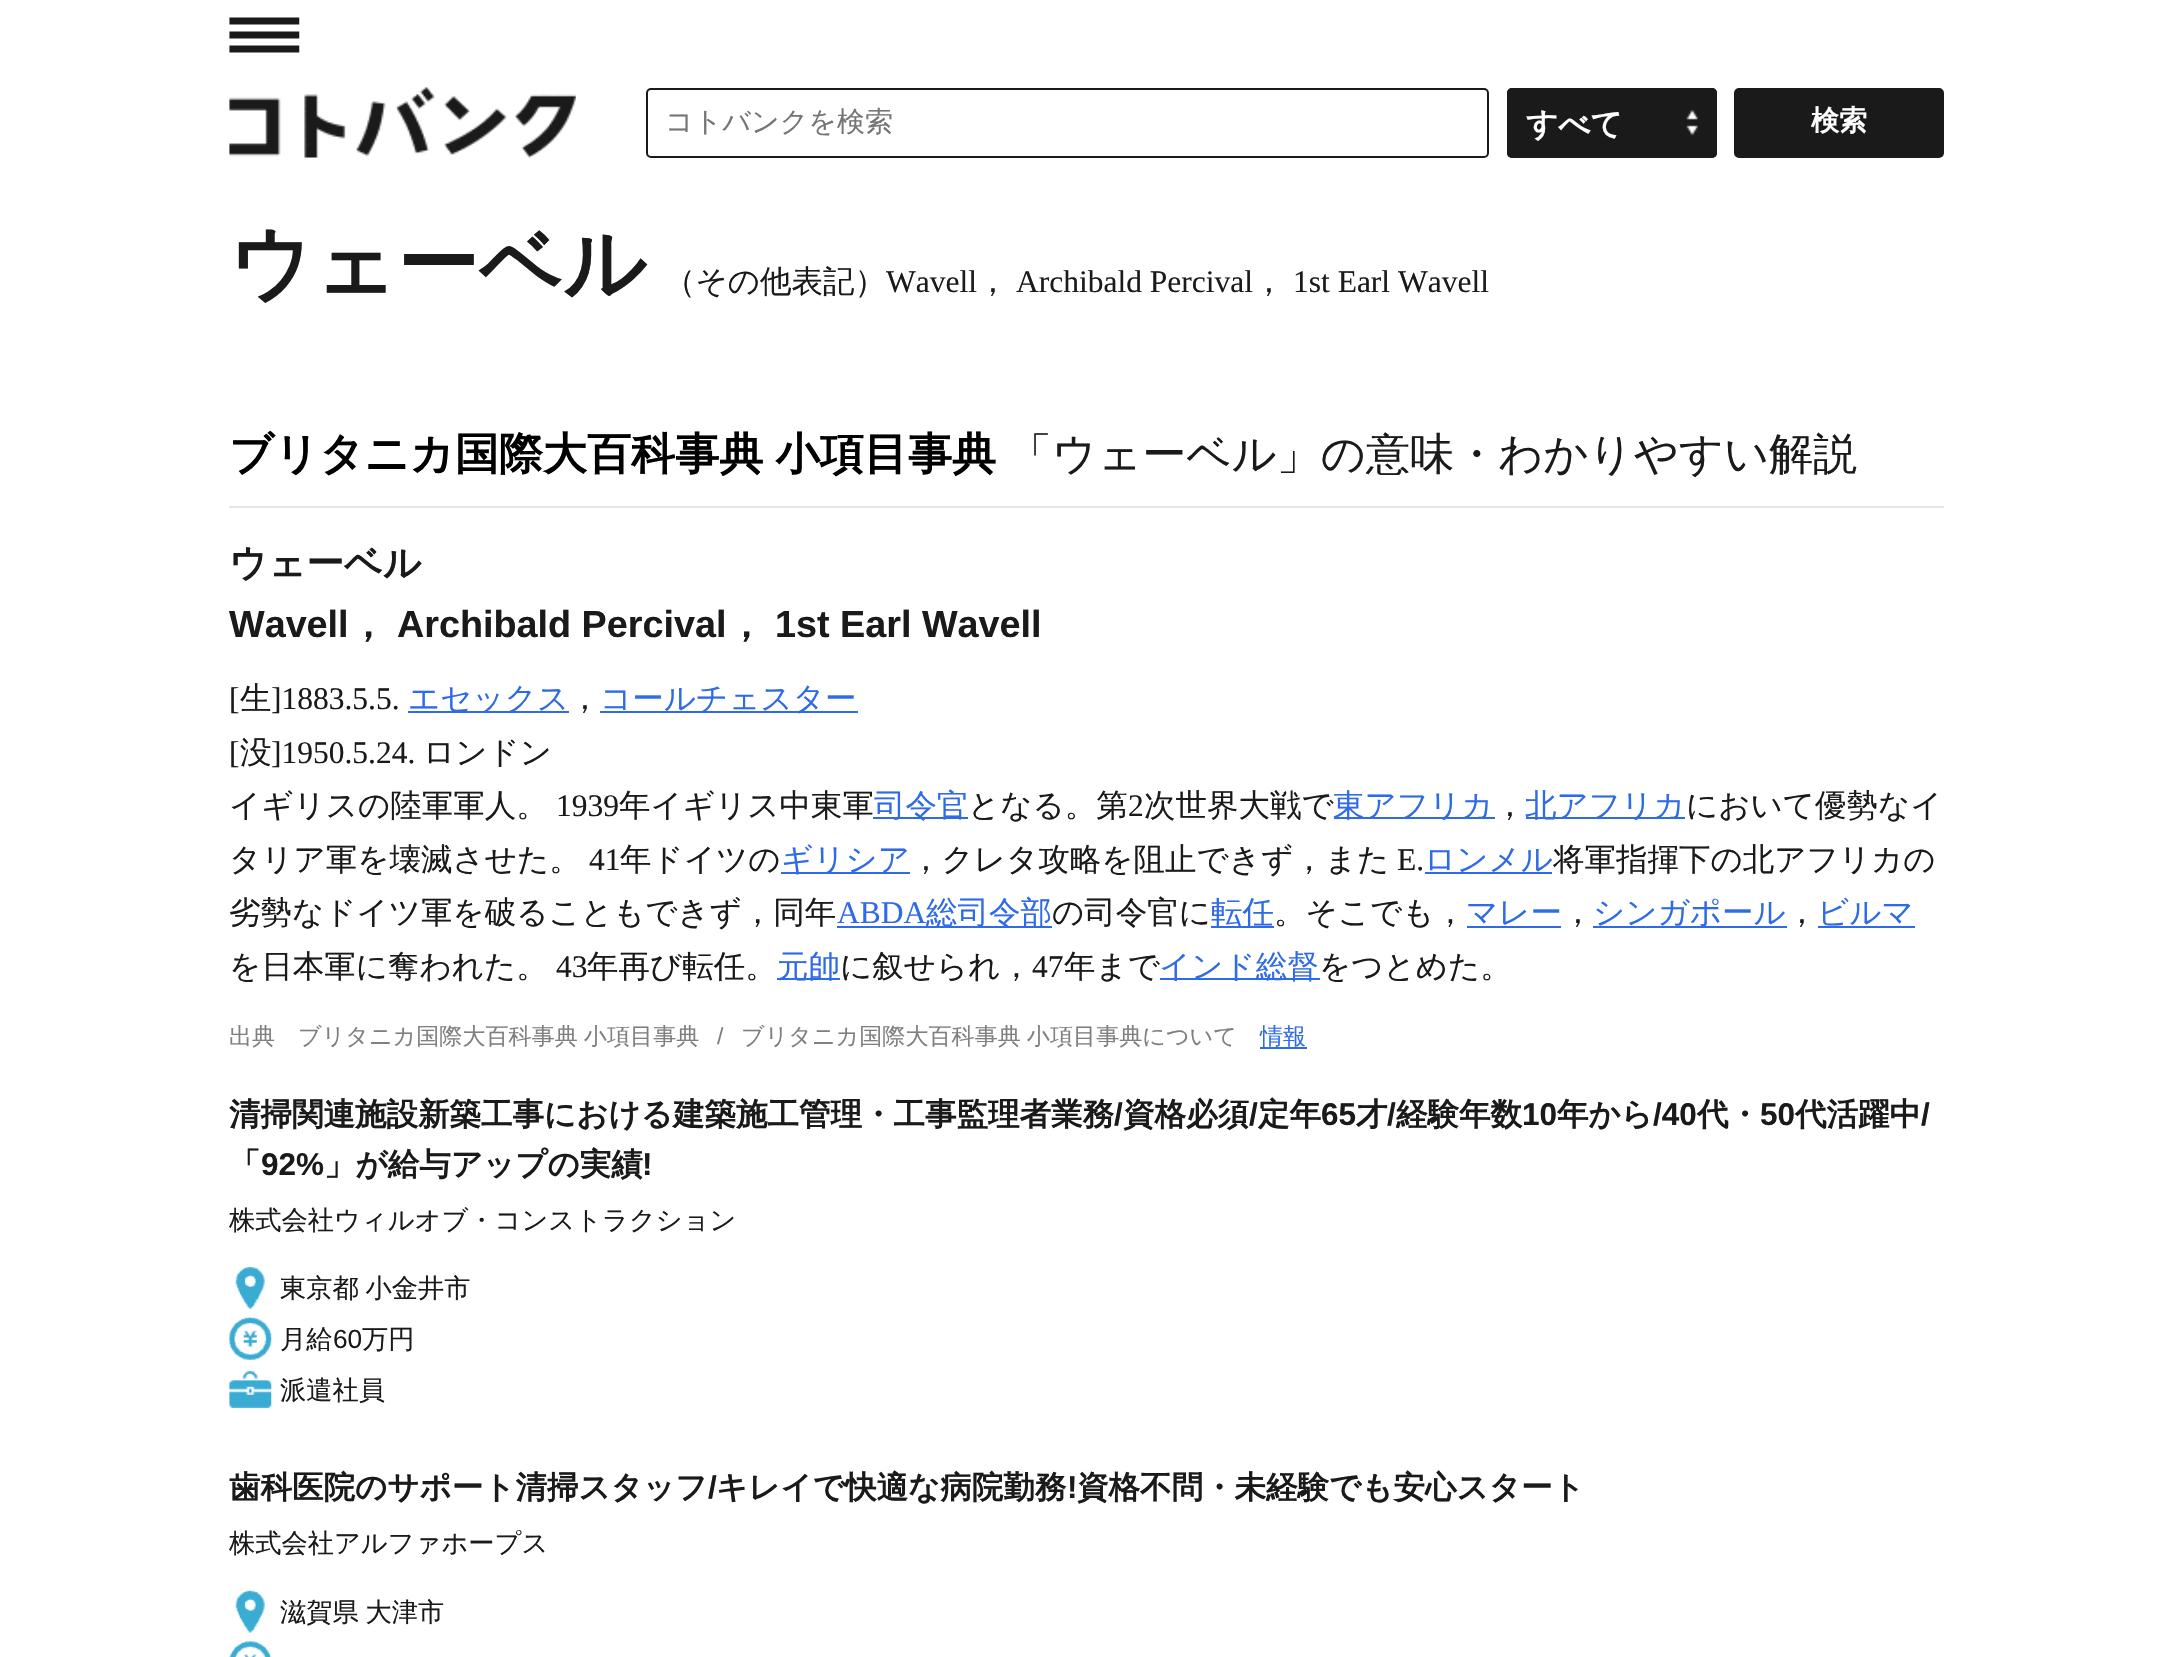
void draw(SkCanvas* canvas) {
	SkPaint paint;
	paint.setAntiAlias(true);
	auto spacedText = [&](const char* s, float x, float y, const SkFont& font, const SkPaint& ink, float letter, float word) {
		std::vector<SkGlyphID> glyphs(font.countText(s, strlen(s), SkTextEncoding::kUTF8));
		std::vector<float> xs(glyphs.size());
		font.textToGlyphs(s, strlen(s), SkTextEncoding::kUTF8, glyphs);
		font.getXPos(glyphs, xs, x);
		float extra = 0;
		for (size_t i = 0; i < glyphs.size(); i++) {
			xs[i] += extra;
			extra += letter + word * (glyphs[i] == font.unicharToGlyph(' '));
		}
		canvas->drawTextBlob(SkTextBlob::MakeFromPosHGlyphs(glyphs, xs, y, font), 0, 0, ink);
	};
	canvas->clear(0xffffffff);
	canvas->drawImageRect(SkImages::DeferredFromEncodedData(SkData::MakeFromFileName("img1.png")), SkRect::MakeXYWH(229, 17, 71, 36), SkSamplingOptions());
	canvas->drawImageRect(SkImages::DeferredFromEncodedData(SkData::MakeFromFileName("img2.png")), SkRect::MakeXYWH(229, 87, 347, 71), SkSamplingOptions());
	paint.setStroke(true);
	paint.setStrokeWidth(2);
	paint.setColor(0xff1a1a1a);
	canvas->drawRoundRect(SkRect::MakeXYWH(647, 89, 841, 68), 4, 4, paint);
	SkFont f1(fontMgr->matchFamilyStyle("WenQuanYi Zen Hei", SkFontStyle(500, SkFontStyle::kNormal_Width, SkFontStyle::kUpright_Slant)), 28);
	f1.setSubpixel(true);
	paint.setStroke(false);
	paint.setColor(0xff757575);
	canvas->drawString("コトバンクを検索", 665, 131, f1, paint);
	paint.setColor(0xff1a1a1a);
	canvas->drawRoundRect(SkRect::MakeXYWH(1507, 88, 210, 70), 5, 5, paint);
	canvas->drawImageRect(SkImages::DeferredFromEncodedData(SkData::MakeFromFileName("img3.png")), SkRect::MakeXYWH(1686, 110, 12, 26), SkSamplingOptions());
	paint.setStroke(true);
	canvas->drawRoundRect(SkRect::MakeXYWH(1508, 89, 208, 68), 4, 4, paint);
	SkFont f2(fontMgr->matchFamilyStyle("WenQuanYi Zen Hei", SkFontStyle::Bold()), 31.5);
	f2.setSubpixel(true);
	paint.setStroke(false);
	paint.setColor(0xffffffff);
	canvas->drawString("すべて", 1526, 135, f2, paint);
	paint.setColor(0xff1a1a1a);
	canvas->drawRoundRect(SkRect::MakeXYWH(1735, 89, 208, 68), 4, 4, paint);
	paint.setStroke(true);
	canvas->drawRoundRect(SkRect::MakeXYWH(1735, 89, 208, 68), 4, 4, paint);
	SkFont f3(fontMgr->matchFamilyStyle("WenQuanYi Zen Hei", SkFontStyle::Bold()), 28);
	f3.setSubpixel(true);
	paint.setStroke(false);
	paint.setColor(0xffffffff);
	canvas->drawString("検索", 1811, 130, f3, paint);
	SkFont f4(fontMgr->matchFamilyStyle("WenQuanYi Zen Hei", SkFontStyle::Bold()), 82);
	f4.setSubpixel(true);
	paint.setColor(0xff1a1a1a);
	canvas->drawString("ウェーベル", 229, 292, f4, paint);
	SkFont f5(fontMgr->matchFamilyStyle("WenQuanYi Zen Hei", SkFontStyle(500, SkFontStyle::kNormal_Width, SkFontStyle::kUpright_Slant)), 31.5);
	f5.setSubpixel(true);
	canvas->drawString("（その他表記）", 664, 292, f5, paint);
	SkFont f6(fontMgr->matchFamilyStyle("Liberation Serif", SkFontStyle::Normal()), 31.5);
	f6.setSubpixel(true);
	canvas->drawString("Wavell", 886, 292, f6, paint);
	canvas->drawString("，", 977, 292, f5, paint);
	canvas->drawString("Archibald Percival", 1016, 292, f6, paint);
	canvas->drawString("，", 1253, 292, f5, paint);
	canvas->drawString("1st Earl Wavell", 1293, 292, f6, paint);
	paint.setColor(0xffe6e6e6);
	canvas->drawRect(SkRect::MakeXYWH(229, 506, 1715, 2), paint);
	SkFont f7(fontMgr->matchFamilyStyle("WenQuanYi Zen Hei", SkFontStyle::Bold()), 44.1);
	f7.setSubpixel(true);
	paint.setColor(0xff000000);
	spacedText("ブリタニカ国際大百科事典 小項目事典", 229, 469, f7, paint, 0, -1);
	SkFont f8(fontMgr->matchFamilyStyle("WenQuanYi Zen Hei", SkFontStyle(500, SkFontStyle::kNormal_Width, SkFontStyle::kUpright_Slant)), 44.1);
	f8.setSubpixel(true);
	paint.setColor(0xff1a1a1a);
	canvas->drawString("「ウェーベル」の意味・わかりやすい解説", 1008, 469, f8, paint);
	SkFont f9(fontMgr->matchFamilyStyle("WenQuanYi Zen Hei", SkFontStyle::Bold()), 37.75);
	f9.setSubpixel(true);
	canvas->drawString("ウェーベル", 229, 576, f9, paint);
	SkFont f10(fontMgr->matchFamilyStyle("Liberation Sans", SkFontStyle::Bold()), 37.75);
	f10.setSubpixel(true);
	canvas->drawString("Wavell", 229, 637, f10, paint);
	canvas->drawString("，", 349, 637, f9, paint);
	canvas->drawString("Archibald Percival", 397, 637, f10, paint);
	canvas->drawString("，", 727, 637, f9, paint);
	canvas->drawString("1st Earl Wavell", 775, 637, f10, paint);
	canvas->drawString("[", 229, 709, f6, paint);
	canvas->drawString("生", 240, 709, f5, paint);
	canvas->drawString("]1883.5.5.", 271, 709, f6, paint);
	paint.setColor(0xff2f6be6);
	canvas->drawRect(SkRect::MakeXYWH(408, 711, 161, 2), paint);
	canvas->drawString("エセックス", 408, 709, f5, paint);
	paint.setColor(0xff1a1a1a);
	canvas->drawString("，", 569, 709, f5, paint);
	paint.setColor(0xff2f6be6);
	canvas->drawRect(SkRect::MakeXYWH(600, 711, 258, 2), paint);
	canvas->drawString("コールチェスター", 600, 709, f5, paint);
	paint.setColor(0xff1a1a1a);
	canvas->drawString("[", 229, 763, f6, paint);
	canvas->drawString("没", 240, 763, f5, paint);
	canvas->drawString("]1950.5.24.", 271, 763, f6, paint);
	canvas->drawString("ロンドン", 423, 763, f5, paint);
	canvas->drawString("イギリスの陸軍軍人。", 229, 816, f5, paint);
	canvas->drawString("1939", 556, 816, f6, paint);
	canvas->drawString("年イギリス中東軍", 619, 816, f5, paint);
	paint.setColor(0xff2f6be6);
	canvas->drawRect(SkRect::MakeXYWH(873, 817, 95, 2), paint);
	canvas->drawString("司令官", 874, 816, f5, paint);
	paint.setColor(0xff1a1a1a);
	canvas->drawString("となる。第", 968, 816, f5, paint);
	canvas->drawString("2", 1128, 816, f6, paint);
	canvas->drawString("次世界大戦で", 1144, 816, f5, paint);
	paint.setColor(0xff2f6be6);
	canvas->drawRect(SkRect::MakeXYWH(1334, 817, 161, 2), paint);
	canvas->drawString("東アフリカ", 1333, 816, f5, paint);
	paint.setColor(0xff1a1a1a);
	canvas->drawString("，", 1494, 816, f5, paint);
	paint.setColor(0xff2f6be6);
	canvas->drawRect(SkRect::MakeXYWH(1526, 817, 159, 2), paint);
	canvas->drawString("北アフリカ", 1525, 816, f5, paint);
	paint.setColor(0xff1a1a1a);
	canvas->drawString("において優勢なイ", 1686, 816, f5, paint);
	canvas->drawString("タリア軍を壊滅させた。", 229, 870, f5, paint);
	canvas->drawString("41", 589, 870, f6, paint);
	canvas->drawString("年ドイツの", 620, 870, f5, paint);
	paint.setColor(0xff2f6be6);
	canvas->drawRect(SkRect::MakeXYWH(781, 872, 129, 2), paint);
	canvas->drawString("ギリシア", 781, 870, f5, paint);
	paint.setColor(0xff1a1a1a);
	canvas->drawString("，クレタ攻略を阻止できず，また", 910, 870, f5, paint);
	canvas->drawString("E.", 1397, 870, f6, paint);
	paint.setColor(0xff2f6be6);
	canvas->drawRect(SkRect::MakeXYWH(1425, 872, 127, 2), paint);
	canvas->drawString("ロンメル", 1424, 870, f5, paint);
	paint.setColor(0xff1a1a1a);
	canvas->drawString("将軍指揮下の北アフリカの", 1553, 870, f5, paint);
	canvas->drawString("劣勢なドイツ軍を破ることもできず，同年", 229, 923, f5, paint);
	paint.setColor(0xff2f6be6);
	canvas->drawString("ABDA", 837, 923, f6, paint);
	canvas->drawRect(SkRect::MakeXYWH(837, 926, 215, 2), paint);
	canvas->drawString("総司令部", 926, 923, f5, paint);
	paint.setColor(0xff1a1a1a);
	canvas->drawString("の司令官に", 1052, 923, f5, paint);
	paint.setColor(0xff2f6be6);
	canvas->drawRect(SkRect::MakeXYWH(1211, 926, 63, 2), paint);
	canvas->drawString("転任", 1211, 923, f5, paint);
	paint.setColor(0xff1a1a1a);
	canvas->drawString("。そこでも，", 1274, 923, f5, paint);
	paint.setColor(0xff2f6be6);
	canvas->drawString("マレー", 1466, 923, f5, paint);
	canvas->drawRect(SkRect::MakeXYWH(1467, 926, 94, 2), paint);
	paint.setColor(0xff1a1a1a);
	canvas->drawString("，", 1562, 923, f5, paint);
	paint.setColor(0xff2f6be6);
	canvas->drawRect(SkRect::MakeXYWH(1593, 926, 194, 2), paint);
	canvas->drawString("シンガポール", 1593, 923, f5, paint);
	paint.setColor(0xff1a1a1a);
	canvas->drawString("，", 1786, 923, f5, paint);
	paint.setColor(0xff2f6be6);
	canvas->drawString("ビルマ", 1817, 923, f5, paint);
	canvas->drawRect(SkRect::MakeXYWH(1818, 926, 97, 2), paint);
	paint.setColor(0xff1a1a1a);
	canvas->drawString("を日本軍に奪われた。", 229, 977, f5, paint);
	canvas->drawString("43", 556, 977, f6, paint);
	canvas->drawString("年再び転任。", 587, 977, f5, paint);
	paint.setColor(0xff2f6be6);
	canvas->drawRect(SkRect::MakeXYWH(777, 978, 63, 2), paint);
	canvas->drawString("元帥", 777, 977, f5, paint);
	paint.setColor(0xff1a1a1a);
	canvas->drawString("に叙せられ，", 840, 977, f5, paint);
	canvas->drawString("47", 1032, 977, f6, paint);
	canvas->drawString("年まで", 1064, 977, f5, paint);
	paint.setColor(0xff2f6be6);
	canvas->drawRect(SkRect::MakeXYWH(1160, 978, 160, 2), paint);
	canvas->drawString("インド総督", 1159, 977, f5, paint);
	paint.setColor(0xff1a1a1a);
	canvas->drawString("をつとめた。", 1319, 977, f5, paint);
	SkFont f11(fontMgr->matchFamilyStyle("WenQuanYi Zen Hei", SkFontStyle(500, SkFontStyle::kNormal_Width, SkFontStyle::kUpright_Slant)), 23.1);
	f11.setSubpixel(true);
	paint.setColor(0xff808080);
	canvas->drawString("出典", 229, 1044, f11, paint);
	spacedText("ブリタニカ国際大百科事典 小項目事典", 298, 1044, f11, paint, 0, -1);
	SkFont f12(fontMgr->matchFamilyStyle("Liberation Sans", SkFontStyle::Normal()), 23.1);
	f12.setSubpixel(true);
	canvas->drawString("/", 717, 1044, f12, paint);
	spacedText("ブリタニカ国際大百科事典 小項目事典について", 741, 1044, f11, paint, 0, -1);
	paint.setColor(0xff2f6be6);
	canvas->drawRect(SkRect::MakeXYWH(1260, 1047, 47, 2), paint);
	canvas->drawString("情報", 1260, 1044, f11, paint);
	paint.setColor(0xff1a1a1a);
	canvas->drawString("清掃関連施設新築工事における建築施工管理・工事監理者業務", 229, 1125, f2, paint);
	SkFont f13(fontMgr->matchFamilyStyle("Liberation Sans", SkFontStyle::Bold()), 31.5);
	f13.setSubpixel(true);
	canvas->drawString("/", 1114, 1125, f13, paint);
	canvas->drawString("資格必須", 1123, 1125, f2, paint);
	canvas->drawString("/", 1249, 1125, f13, paint);
	canvas->drawString("定年", 1258, 1125, f2, paint);
	canvas->drawString("65", 1321, 1125, f13, paint);
	canvas->drawString("才", 1356, 1125, f2, paint);
	canvas->drawString("/", 1387, 1125, f13, paint);
	canvas->drawString("経験年数", 1396, 1125, f2, paint);
	canvas->drawString("10", 1522, 1125, f13, paint);
	canvas->drawString("年から", 1557, 1125, f2, paint);
	canvas->drawString("/40", 1653, 1125, f13, paint);
	canvas->drawString("代・", 1697, 1125, f2, paint);
	canvas->drawString("50", 1760, 1125, f13, paint);
	canvas->drawString("代活躍中", 1795, 1125, f2, paint);
	canvas->drawString("/", 1921, 1125, f13, paint);
	canvas->drawString("「", 229, 1175, f2, paint);
	canvas->drawString("92%", 261, 1175, f13, paint);
	canvas->drawString("」が給与アップの実績", 324, 1175, f2, paint);
	canvas->drawString("!", 642, 1175, f13, paint);
	SkFont f14(fontMgr->matchFamilyStyle("WenQuanYi Zen Hei", SkFontStyle(500, SkFontStyle::kNormal_Width, SkFontStyle::kUpright_Slant)), 26.25);
	f14.setSubpixel(true);
	canvas->drawString("株式会社ウィルオブ・コンストラクション", 229, 1229, f14, paint);
	canvas->drawImageRect(SkImages::DeferredFromEncodedData(SkData::MakeFromFileName("img4.png")), SkRect::MakeXYWH(235, 1267, 30, 42), SkSamplingOptions());
	spacedText("東京都 小金井市", 280, 1297, f14, paint, 0, -1);
	canvas->drawImageRect(SkImages::DeferredFromEncodedData(SkData::MakeFromFileName("img5.png")), SkRect::MakeXYWH(229, 1317, 43, 43), SkSamplingOptions());
	canvas->drawString("月給", 280, 1348, f14, paint);
	SkFont f15(fontMgr->matchFamilyStyle("Liberation Sans", SkFontStyle::Normal()), 26.25);
	f15.setSubpixel(true);
	canvas->drawString("60", 333, 1348, f15, paint);
	canvas->drawString("万円", 362, 1348, f14, paint);
	canvas->drawImageRect(SkImages::DeferredFromEncodedData(SkData::MakeFromFileName("img6.png")), SkRect::MakeXYWH(229, 1371, 43, 38), SkSamplingOptions());
	canvas->drawString("派遣社員", 280, 1399, f14, paint);
	canvas->drawString("歯科医院のサポート清掃スタッフ", 229, 1498, f2, paint);
	canvas->drawString("/", 708, 1498, f13, paint);
	canvas->drawString("キレイで快適な病院勤務", 716, 1498, f2, paint);
	canvas->drawString("!", 1067, 1498, f13, paint);
	canvas->drawString("資格不問・未経験でも安心スタート", 1077, 1498, f2, paint);
	canvas->drawString("株式会社アルファホープス", 229, 1552, f14, paint);
	canvas->drawImageRect(SkImages::DeferredFromEncodedData(SkData::MakeFromFileName("img7.png")), SkRect::MakeXYWH(235, 1590, 30, 43), SkSamplingOptions());
	spacedText("滋賀県 大津市", 280, 1621, f14, paint, 0, -1);
	canvas->drawImageRect(SkImages::DeferredFromEncodedData(SkData::MakeFromFileName("img8.png")), SkRect::MakeXYWH(229, 1641, 43, 16), SkSamplingOptions());
}
